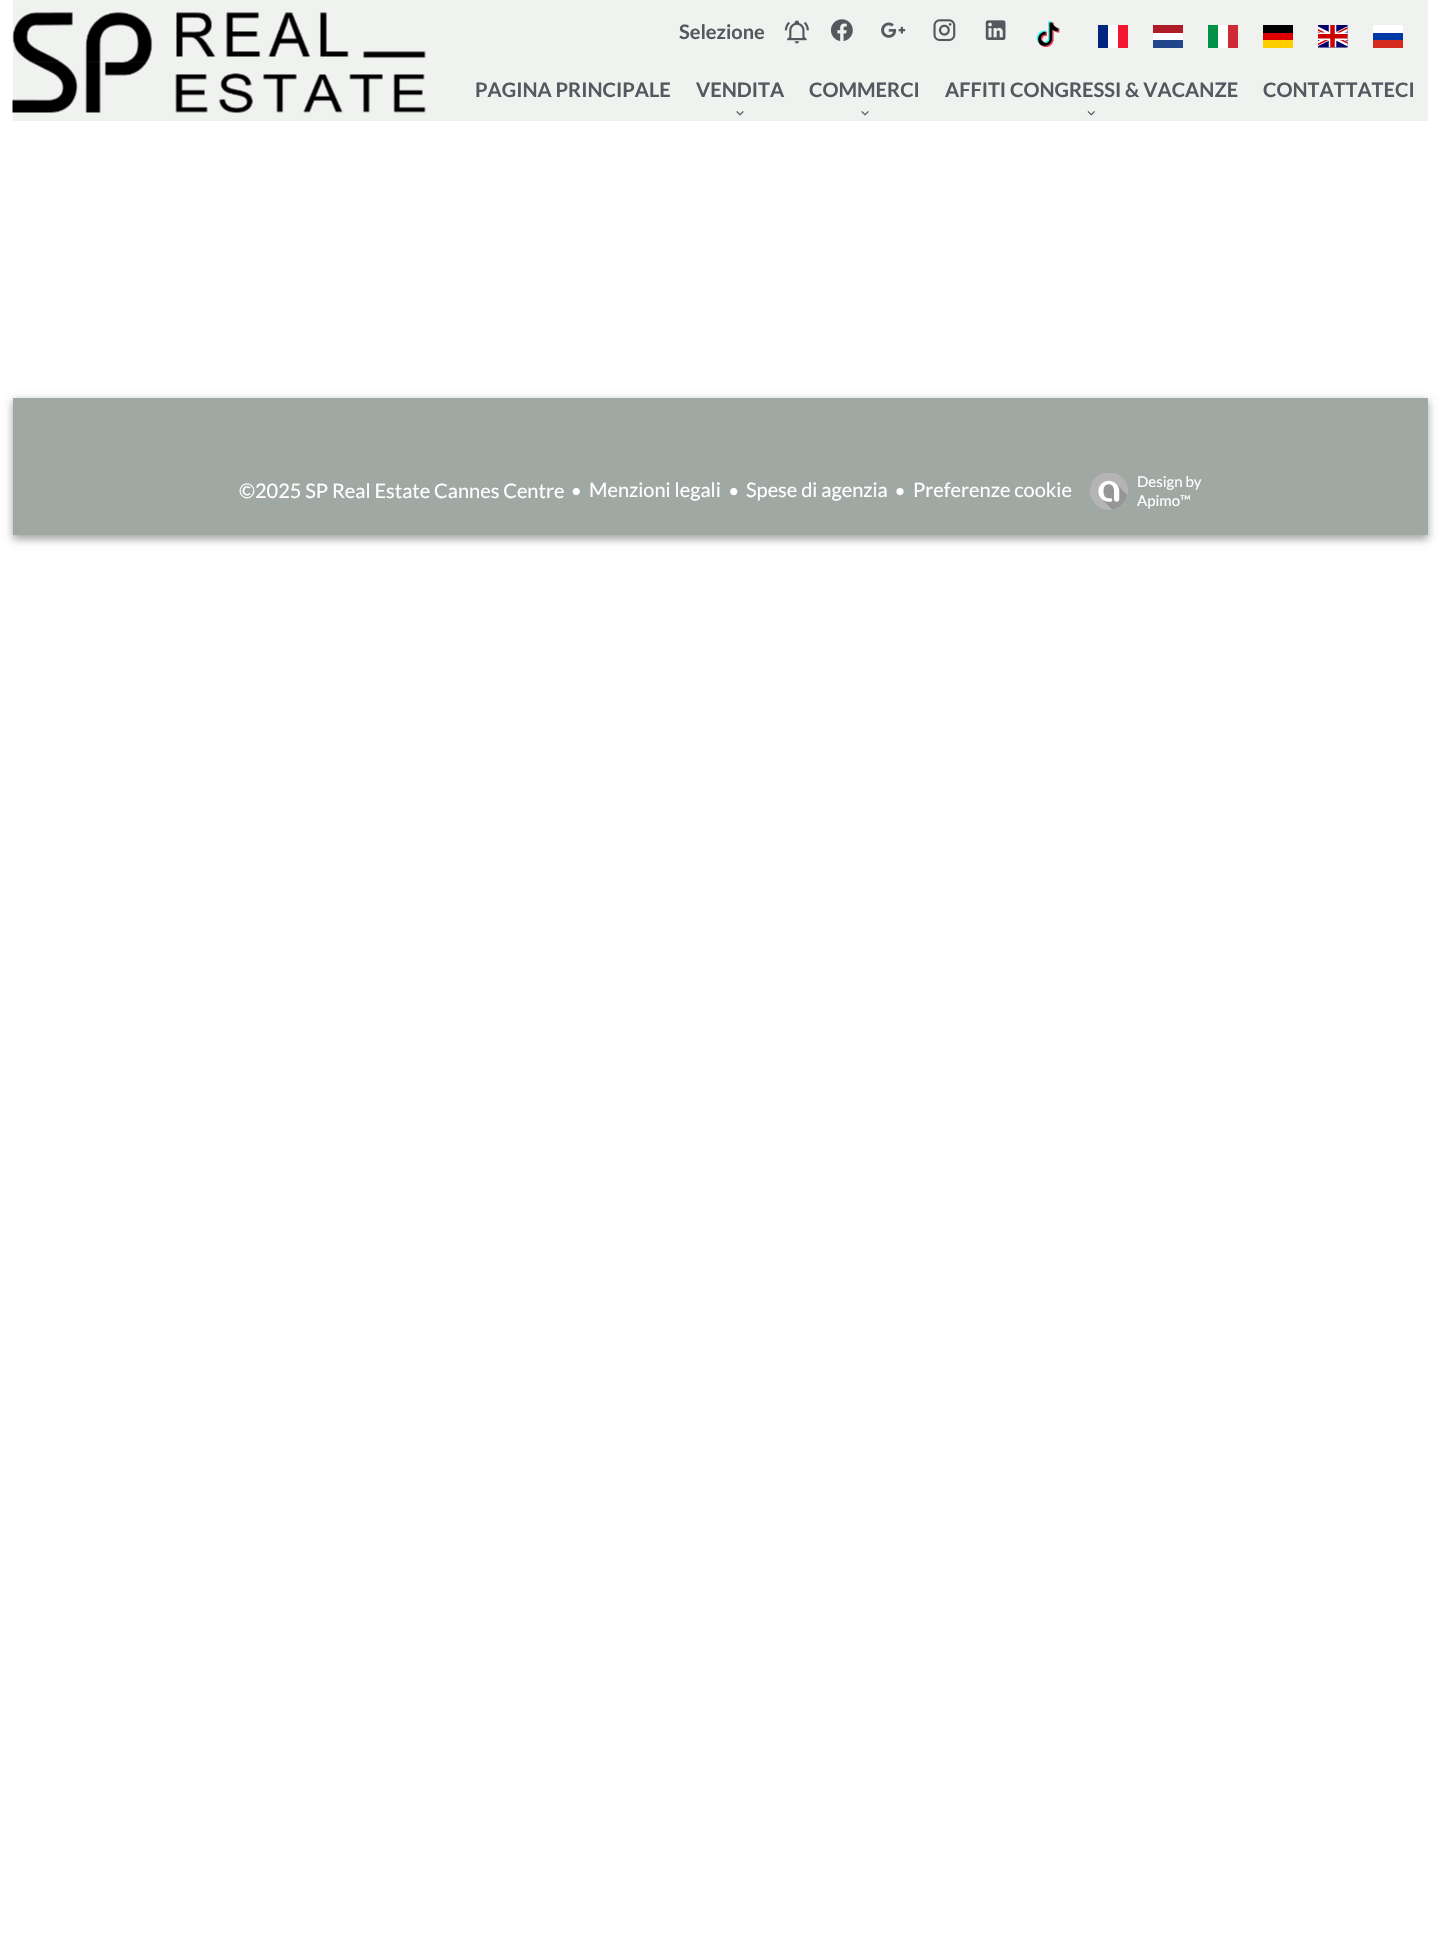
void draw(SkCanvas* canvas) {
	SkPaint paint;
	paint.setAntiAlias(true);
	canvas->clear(0xffffffff);
	paint.setColor(0xfff0f2f0);
	canvas->drawRect(SkRect::MakeXYWH(13, 0, 1415, 121), paint);
	canvas->drawImageRect(SkImages::DeferredFromEncodedData(SkData::MakeFromFileName("img1.png")), SkRect::MakeXYWH(12, 12, 414, 101), SkSamplingOptions());
	SkFont f1(fontMgr->matchFamilyStyle("Lato", SkFontStyle::Bold()), 20);
	f1.setSubpixel(true);
	paint.setColor(0xff54595f);
	canvas->drawString("Selezione", 679, 39, f1, paint);
	canvas->drawImageRect(SkImages::DeferredFromEncodedData(SkData::MakeFromFileName("img2.png")), SkRect::MakeXYWH(784, 20, 25, 24), SkSamplingOptions());
	canvas->drawImageRect(SkImages::DeferredFromEncodedData(SkData::MakeFromFileName("img3.png")), SkRect::MakeXYWH(830, 19, 23, 22), SkSamplingOptions());
	canvas->drawImageRect(SkImages::DeferredFromEncodedData(SkData::MakeFromFileName("img4.png")), SkRect::MakeXYWH(881, 22, 25, 16), SkSamplingOptions());
	canvas->drawImageRect(SkImages::DeferredFromEncodedData(SkData::MakeFromFileName("img5.png")), SkRect::MakeXYWH(933, 19, 23, 23), SkSamplingOptions());
	canvas->drawImageRect(SkImages::DeferredFromEncodedData(SkData::MakeFromFileName("img6.png")), SkRect::MakeXYWH(985, 20, 21, 20), SkSamplingOptions());
	canvas->drawImageRect(SkImages::DeferredFromEncodedData(SkData::MakeFromFileName("img7.png")), SkRect::MakeXYWH(1036, 21, 24, 26), SkSamplingOptions());
	paint.setColor(0xffffffff);
	canvas->drawRect(SkRect::MakeXYWH(1108, 25, 10, 23), paint);
	paint.setColor(0xff00267f);
	canvas->drawRect(SkRect::MakeXYWH(1098, 25, 10, 23), paint);
	paint.setColor(0xfff31830);
	canvas->drawRect(SkRect::MakeXYWH(1118, 25, 10, 23), paint);
	paint.setColor(0xffffffff);
	canvas->drawRect(SkRect::MakeXYWH(1153, 33, 30, 7), paint);
	paint.setColor(0xff21468b);
	canvas->drawRect(SkRect::MakeXYWH(1153, 40, 30, 8), paint);
	paint.setColor(0xffae1c28);
	canvas->drawRect(SkRect::MakeXYWH(1153, 25, 30, 8), paint);
	paint.setColor(0xffffffff);
	canvas->drawRect(SkRect::MakeXYWH(1218, 25, 10, 23), paint);
	paint.setColor(0xff009246);
	canvas->drawRect(SkRect::MakeXYWH(1208, 25, 10, 23), paint);
	paint.setColor(0xffce2b37);
	canvas->drawRect(SkRect::MakeXYWH(1228, 25, 10, 23), paint);
	paint.setColor(0xffffce00);
	canvas->drawRect(SkRect::MakeXYWH(1263, 40, 30, 8), paint);
	paint.setColor(0xff000000);
	canvas->drawRect(SkRect::MakeXYWH(1263, 25, 30, 8), paint);
	paint.setColor(0xffdd0000);
	canvas->drawRect(SkRect::MakeXYWH(1263, 33, 30, 7), paint);
	canvas->drawImageRect(SkImages::DeferredFromEncodedData(SkData::MakeFromFileName("img8.png")), SkRect::MakeXYWH(1318, 25, 30, 23), SkSamplingOptions());
	paint.setColor(0xffffffff);
	canvas->drawRect(SkRect::MakeXYWH(1373, 25, 30, 8), paint);
	paint.setColor(0xff0039a6);
	canvas->drawRect(SkRect::MakeXYWH(1373, 33, 30, 7), paint);
	paint.setColor(0xffd52b1e);
	canvas->drawRect(SkRect::MakeXYWH(1373, 40, 30, 8), paint);
	paint.setColor(0xff54595f);
	canvas->drawString("PAGINA PRINCIPALE", 475, 97, f1, paint);
	canvas->drawString("VENDITA", 696, 97, f1, paint);
	canvas->drawImageRect(SkImages::DeferredFromEncodedData(SkData::MakeFromFileName("img9.png")), SkRect::MakeXYWH(736, 111, 8, 5), SkSamplingOptions());
	canvas->drawString("COMMERCI", 809, 97, f1, paint);
	canvas->drawImageRect(SkImages::DeferredFromEncodedData(SkData::MakeFromFileName("img9.png")), SkRect::MakeXYWH(861, 111, 8, 5), SkSamplingOptions());
	canvas->drawString("AFFITI CONGRESSI & VACANZE", 945, 97, f1, paint);
	canvas->drawImageRect(SkImages::DeferredFromEncodedData(SkData::MakeFromFileName("img10.png")), SkRect::MakeXYWH(1087, 111, 8, 5), SkSamplingOptions());
	canvas->drawString("CONTATTATECI", 1263, 97, f1, paint);
	paint.setColor(0x3b000000);
	paint.setMaskFilter(SkMaskFilter::MakeBlur(kNormal_SkBlurStyle, 4));
	canvas->drawRect(SkRect::MakeXYWH(13, 401, 1415, 138), paint);
	paint.setMaskFilter(nullptr);
	paint.setColor(0x29000000);
	paint.setMaskFilter(SkMaskFilter::MakeBlur(kNormal_SkBlurStyle, 4));
	canvas->drawRect(SkRect::MakeXYWH(13, 401, 1415, 138), paint);
	paint.setMaskFilter(nullptr);
	paint.setColor(0xff9fa8a3);
	canvas->drawRect(SkRect::MakeXYWH(13, 398, 1415, 137), paint);
	SkFont f2(fontMgr->matchFamilyStyle("Lato", SkFontStyle::Normal()), 20);
	f2.setSubpixel(true);
	paint.setColor(0xffffffff);
	canvas->drawString("©2025 SP Real Estate Cannes Centre", 239, 498, f2, paint);
	canvas->drawImageRect(SkImages::DeferredFromEncodedData(SkData::MakeFromFileName("img11.png")), SkRect::MakeXYWH(572, 488, 8, 8), SkSamplingOptions());
	canvas->drawString("Menzioni legali", 589, 497, f2, paint);
	canvas->drawImageRect(SkImages::DeferredFromEncodedData(SkData::MakeFromFileName("img12.png")), SkRect::MakeXYWH(730, 488, 8, 8), SkSamplingOptions());
	canvas->drawString("Spese di agenzia", 746, 497, f2, paint);
	canvas->drawImageRect(SkImages::DeferredFromEncodedData(SkData::MakeFromFileName("img13.png")), SkRect::MakeXYWH(896, 488, 8, 8), SkSamplingOptions());
	canvas->drawString("Preferenze cookie", 913, 497, f2, paint);
	canvas->drawImageRect(SkImages::DeferredFromEncodedData(SkData::MakeFromFileName("img14.png")), SkRect::MakeXYWH(1090, 473, 38, 37), SkSamplingOptions());
	SkFont f3(fontMgr->matchFamilyStyle("Lato", SkFontStyle::Normal()), 15);
	f3.setSubpixel(true);
	canvas->drawString("Design by", 1137, 487, f3, paint);
	canvas->drawString("Apimo™", 1137, 506, f3, paint);
}
